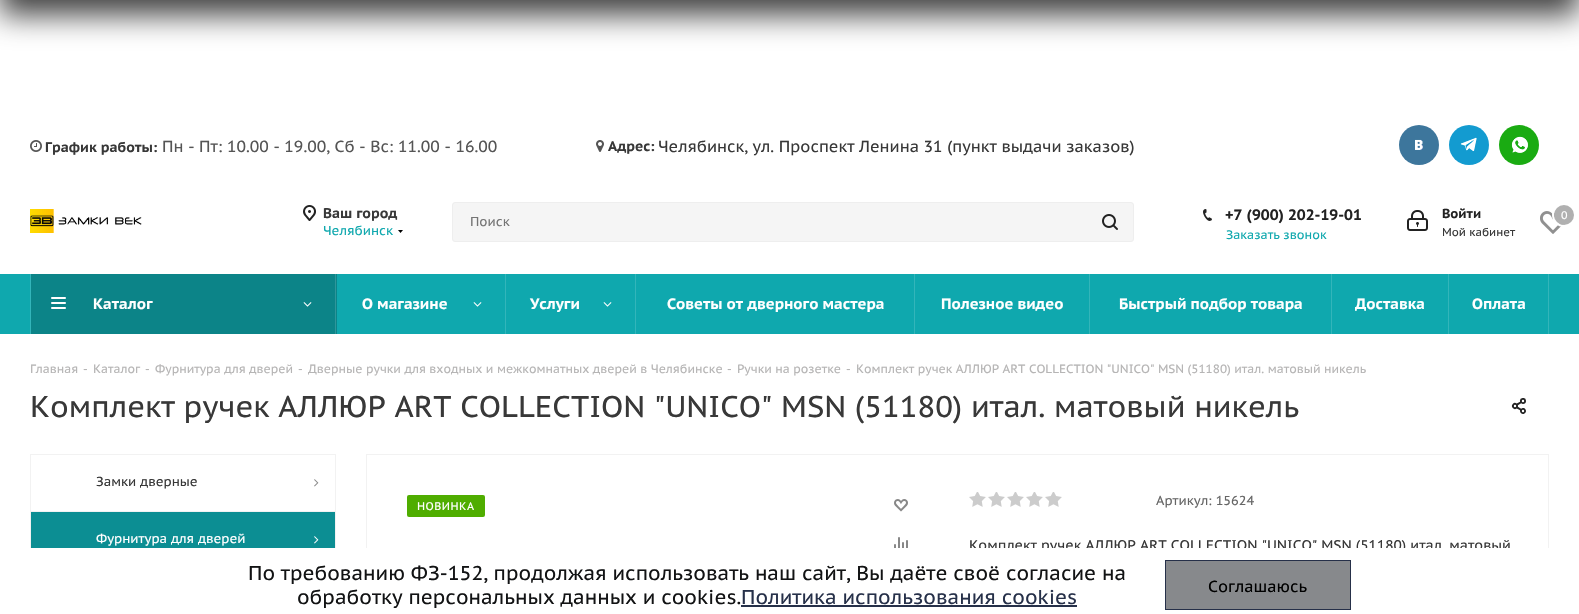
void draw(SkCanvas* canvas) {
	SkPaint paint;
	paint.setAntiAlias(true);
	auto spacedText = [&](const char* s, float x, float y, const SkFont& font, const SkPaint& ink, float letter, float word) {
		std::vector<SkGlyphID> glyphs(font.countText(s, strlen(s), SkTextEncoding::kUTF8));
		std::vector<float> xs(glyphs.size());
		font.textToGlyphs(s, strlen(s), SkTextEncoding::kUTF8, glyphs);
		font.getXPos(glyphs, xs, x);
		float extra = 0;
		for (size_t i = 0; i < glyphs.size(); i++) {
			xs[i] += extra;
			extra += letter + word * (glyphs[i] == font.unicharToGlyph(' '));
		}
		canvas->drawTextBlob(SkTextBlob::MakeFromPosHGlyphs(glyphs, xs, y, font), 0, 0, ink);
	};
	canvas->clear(0xffffffff);
	paint.setColor(0xbf000000);
	paint.setMaskFilter(SkMaskFilter::MakeBlur(kNormal_SkBlurStyle, 15));
	canvas->drawRect(SkRect::MakeXYWH(0, -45, 1579, 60), paint);
	paint.setMaskFilter(nullptr);
	canvas->drawImageRect(SkImages::DeferredFromEncodedData(SkData::MakeFromFileName("img1.png")), SkRect::MakeXYWH(30, 140, 12, 12), SkSamplingOptions());
	SkFont f1(fontMgr->matchFamilyStyle("PT Sans Caption", SkFontStyle::Bold()), 14);
	f1.setSubpixel(true);
	paint.setColor(0xff383838);
	canvas->drawString("График работы:", 45, 152, f1, paint);
	SkFont f2(fontMgr->matchFamilyStyle("PT Sans Caption", SkFontStyle::Normal()), 16);
	f2.setSubpixel(true);
	paint.setColor(0xff555555);
	canvas->drawString("Пн - Пт: 10.00 - 19.00, Сб - Вс: 11.00 - 16.00", 162, 152, f2, paint);
	canvas->drawImageRect(SkImages::DeferredFromEncodedData(SkData::MakeFromFileName("img2.png")), SkRect::MakeXYWH(596, 140, 8, 12), SkSamplingOptions());
	paint.setColor(0xff383838);
	canvas->drawString("Адрес:", 608, 151, f1, paint);
	canvas->drawString("Челябинск, ул. Проспект Ленина 31 (пункт выдачи заказов)", 658, 152, f2, paint);
	canvas->drawImageRect(SkImages::DeferredFromEncodedData(SkData::MakeFromFileName("img3.png")), SkRect::MakeXYWH(1399, 125, 40, 40), SkSamplingOptions());
	canvas->drawImageRect(SkImages::DeferredFromEncodedData(SkData::MakeFromFileName("img4.png")), SkRect::MakeXYWH(1449, 125, 40, 40), SkSamplingOptions());
	canvas->drawImageRect(SkImages::DeferredFromEncodedData(SkData::MakeFromFileName("img5.png")), SkRect::MakeXYWH(1499, 125, 40, 40), SkSamplingOptions());
	canvas->drawImageRect(SkImages::DeferredFromEncodedData(SkData::MakeFromFileName("img6.png")), SkRect::MakeXYWH(30, 209, 112, 24), SkSamplingOptions());
	canvas->drawImageRect(SkImages::DeferredFromEncodedData(SkData::MakeFromFileName("img7.png")), SkRect::MakeXYWH(303, 205, 13, 16), SkSamplingOptions());
	canvas->drawString("Ваш город", 323, 218, f1, paint);
	SkFont f3(fontMgr->matchFamilyStyle("PT Sans Caption", SkFontStyle::Normal()), 13);
	f3.setSubpixel(true);
	paint.setColor(0xff0fa8ae);
	canvas->drawString("Челябинск", 323, 235, f3, paint);
	canvas->drawImageRect(SkImages::DeferredFromEncodedData(SkData::MakeFromFileName("img8.png")), SkRect::MakeXYWH(398, 230, 5, 3), SkSamplingOptions());
	paint.setColor(0xfff5f5f5);
	canvas->drawRoundRect(SkRect::MakeXYWH(452.5, 202.5, 681, 39), 2.5, 2.5, paint);
	paint.setStroke(true);
	paint.setStrokeWidth(1);
	paint.setColor(0xffeeeeee);
	canvas->drawRoundRect(SkRect::MakeXYWH(452.5, 202.5, 681, 39), 2.5, 2.5, paint);
	paint.setStroke(false);
	paint.setColor(0xff757575);
	canvas->drawString("Поиск", 470, 226, f3, paint);
	canvas->drawImageRect(SkImages::DeferredFromEncodedData(SkData::MakeFromFileName("img9.png")), SkRect::MakeXYWH(1102, 214, 16, 16), SkSamplingOptions());
	canvas->drawImageRect(SkImages::DeferredFromEncodedData(SkData::MakeFromFileName("img10.png")), SkRect::MakeXYWH(1203, 209, 9, 12), SkSamplingOptions());
	SkFont f4(fontMgr->matchFamilyStyle("PT Sans Caption", SkFontStyle::Bold()), 15);
	f4.setSubpixel(true);
	paint.setColor(0xff222222);
	canvas->drawString("+7 (900) 202-19-01", 1225, 220, f4, paint);
	SkFont f5(fontMgr->matchFamilyStyle("PT Sans Caption", SkFontStyle::Normal()), 12.25);
	f5.setSubpixel(true);
	paint.setColor(0xff0fa8ae);
	canvas->drawString("Заказать звонок", 1226, 239, f5, paint);
	canvas->drawImageRect(SkImages::DeferredFromEncodedData(SkData::MakeFromFileName("img11.png")), SkRect::MakeXYWH(1407, 210, 21, 21), SkSamplingOptions());
	SkFont f6(fontMgr->matchFamilyStyle("PT Sans Caption", SkFontStyle::Bold()), 13);
	f6.setSubpixel(true);
	paint.setColor(0xff222222);
	canvas->drawString("Войти", 1442, 218, f6, paint);
	SkFont f7(fontMgr->matchFamilyStyle("PT Sans Caption", SkFontStyle::Normal()), 11.25);
	f7.setSubpixel(true);
	paint.setColor(0xff383838);
	canvas->drawString("Мой кабинет", 1442, 236, f7, paint);
	canvas->drawImageRect(SkImages::DeferredFromEncodedData(SkData::MakeFromFileName("img12.png")), SkRect::MakeXYWH(1540, 211, 23, 23), SkSamplingOptions());
	paint.setStroke(true);
	paint.setStrokeWidth(2);
	paint.setColor(0xffffffff);
	canvas->drawCircle(1564, 215, 11, paint);
	paint.setStroke(false);
	paint.setColor(0xffb0b0b0);
	canvas->drawCircle(1564, 215, 10, paint);
	SkFont f8(fontMgr->matchFamilyStyle("PT Sans Caption", SkFontStyle::Normal()), 11);
	f8.setSubpixel(true);
	paint.setColor(0xffffffff);
	canvas->drawString("0", 1561, 219, f8, paint);
	paint.setColor(0xff0fa8ae);
	canvas->drawRect(SkRect::MakeXYWH(0, 274, 1579, 60), paint);
	paint.setColor(0xff33b5ba);
	canvas->drawRect(SkRect::MakeXYWH(30, 274, 1, 60), paint);
	paint.setColor(0xff0c8488);
	canvas->drawRect(SkRect::MakeXYWH(31, 274, 306, 60), paint);
	paint.setColor(0xff30969a);
	canvas->drawRect(SkRect::MakeXYWH(335, 274, 1, 60), paint);
	canvas->drawImageRect(SkImages::DeferredFromEncodedData(SkData::MakeFromFileName("img13.png")), SkRect::MakeXYWH(51, 297, 15, 12), SkSamplingOptions());
	paint.setColor(0xffffffff);
	canvas->drawString("Каталог", 93, 309, f4, paint);
	canvas->drawImageRect(SkImages::DeferredFromEncodedData(SkData::MakeFromFileName("img14.png")), SkRect::MakeXYWH(303, 302, 9, 5), SkSamplingOptions());
	paint.setColor(0xff33b5ba);
	canvas->drawRect(SkRect::MakeXYWH(505, 274, 1, 60), paint);
	paint.setColor(0xffffffff);
	canvas->drawString("О магазине", 362, 309, f4, paint);
	canvas->drawImageRect(SkImages::DeferredFromEncodedData(SkData::MakeFromFileName("img15.png")), SkRect::MakeXYWH(473, 302, 9, 5), SkSamplingOptions());
	paint.setColor(0xff33b5ba);
	canvas->drawRect(SkRect::MakeXYWH(635, 274, 1, 60), paint);
	paint.setColor(0xffffffff);
	canvas->drawString("Услуги", 530, 309, f4, paint);
	canvas->drawImageRect(SkImages::DeferredFromEncodedData(SkData::MakeFromFileName("img15.png")), SkRect::MakeXYWH(603, 302, 9, 5), SkSamplingOptions());
	paint.setColor(0xff33b5ba);
	canvas->drawRect(SkRect::MakeXYWH(914, 274, 1, 60), paint);
	paint.setColor(0xffffffff);
	canvas->drawString("Советы от дверного мастера", 667, 309, f4, paint);
	paint.setColor(0xff33b5ba);
	canvas->drawRect(SkRect::MakeXYWH(1089, 274, 1, 60), paint);
	paint.setColor(0xffffffff);
	canvas->drawString("Полезное видео", 941, 309, f4, paint);
	paint.setColor(0xff33b5ba);
	canvas->drawRect(SkRect::MakeXYWH(1331, 274, 1, 60), paint);
	paint.setColor(0xffffffff);
	canvas->drawString("Быстрый подбор товара", 1119, 309, f4, paint);
	paint.setColor(0xff33b5ba);
	canvas->drawRect(SkRect::MakeXYWH(1448, 274, 1, 60), paint);
	paint.setColor(0xffffffff);
	canvas->drawString("Доставка", 1355, 309, f4, paint);
	paint.setColor(0xff33b5ba);
	canvas->drawRect(SkRect::MakeXYWH(1548, 274, 1, 60), paint);
	paint.setColor(0xffffffff);
	canvas->drawString("Оплата", 1472, 309, f4, paint);
	SkFont f9(fontMgr->matchFamilyStyle("PT Sans Caption", SkFontStyle::Normal()), 12);
	f9.setSubpixel(true);
	paint.setColor(0xffb6b5b5);
	canvas->drawString("Главная", 30, 373, f9, paint);
	canvas->drawString("-", 83, 373, f9, paint);
	canvas->drawString("Каталог", 93, 373, f9, paint);
	canvas->drawString("-", 145, 373, f9, paint);
	canvas->drawString("Фурнитура для дверей", 155, 373, f9, paint);
	canvas->drawString("-", 298, 373, f9, paint);
	canvas->drawString("Дверные ручки для входных и межкомнатных дверей в Челябинске", 308, 373, f9, paint);
	canvas->drawString("-", 727, 373, f9, paint);
	canvas->drawString("Ручки на розетке", 737, 373, f9, paint);
	canvas->drawString("-", 846, 373, f9, paint);
	canvas->drawString("Комплект ручек АЛЛЮР ART COLLECTION \"UNICO\" MSN (51180) итал. матовый никель", 856, 373, f9, paint);
	SkFont f10(fontMgr->matchFamilyStyle("PT Sans Caption", SkFontStyle::Normal()), 29.85);
	f10.setSubpixel(true);
	paint.setColor(0xff383838);
	canvas->drawString("Комплект ручек АЛЛЮР ART COLLECTION \"UNICO\" MSN (51180) итал. матовый никель", 30, 417, f10, paint);
	canvas->drawImageRect(SkImages::DeferredFromEncodedData(SkData::MakeFromFileName("img16.png")), SkRect::MakeXYWH(1511, 398, 15, 16), SkSamplingOptions());
	paint.setColor(0xfff2f2f2);
	canvas->drawRect(SkRect::MakeXYWH(30, 454, 306, 1), paint);
	canvas->drawRect(SkRect::MakeXYWH(335, 454, 1, 57), paint);
	canvas->drawRect(SkRect::MakeXYWH(30, 454, 1, 57), paint);
	paint.setColor(0xff383838);
	canvas->drawString("Замки дверные", 96, 486, f3, paint);
	canvas->drawImageRect(SkImages::DeferredFromEncodedData(SkData::MakeFromFileName("img17.png")), SkRect::MakeXYWH(314, 479, 5, 8), SkSamplingOptions());
	paint.setColor(0xff0c8e93);
	canvas->drawRect(SkRect::MakeXYWH(31, 512, 304, 36), paint);
	paint.setColor(0xfff2f2f2);
	canvas->drawRect(SkRect::MakeXYWH(30, 511, 306, 1), paint);
	canvas->drawRect(SkRect::MakeXYWH(335, 511, 1, 37), paint);
	canvas->drawRect(SkRect::MakeXYWH(30, 511, 1, 37), paint);
	paint.setColor(0xffffffff);
	canvas->drawString("Фурнитура для дверей", 96, 543, f3, paint);
	canvas->drawImageRect(SkImages::DeferredFromEncodedData(SkData::MakeFromFileName("img18.png")), SkRect::MakeXYWH(314, 536, 5, 8), SkSamplingOptions());
	paint.setStroke(true);
	paint.setStrokeWidth(1);
	paint.setColor(0xfff2f2f2);
	canvas->drawRect(SkRect::MakeXYWH(366.5, 454.5, 1182, 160), paint);
	paint.setStroke(false);
	paint.setColor(0xff4fad00);
	canvas->drawRoundRect(SkRect::MakeXYWH(407, 495, 78, 22), 2, 2, paint);
	paint.setColor(0xffffffff);
	spacedText("НОВИНКА", 417, 510, f8, paint, 0.5, 0);
	canvas->drawImageRect(SkImages::DeferredFromEncodedData(SkData::MakeFromFileName("img19.png")), SkRect::MakeXYWH(894, 499, 14, 13), SkSamplingOptions());
	canvas->drawImageRect(SkImages::DeferredFromEncodedData(SkData::MakeFromFileName("img20.png")), SkRect::MakeXYWH(894, 537, 14, 11), SkSamplingOptions());
	canvas->drawImageRect(SkImages::DeferredFromEncodedData(SkData::MakeFromFileName("img21.png")), SkRect::MakeXYWH(969, 492, 17, 15), SkSamplingOptions());
	canvas->drawImageRect(SkImages::DeferredFromEncodedData(SkData::MakeFromFileName("img21.png")), SkRect::MakeXYWH(988, 492, 17, 15), SkSamplingOptions());
	canvas->drawImageRect(SkImages::DeferredFromEncodedData(SkData::MakeFromFileName("img21.png")), SkRect::MakeXYWH(1007, 492, 17, 15), SkSamplingOptions());
	canvas->drawImageRect(SkImages::DeferredFromEncodedData(SkData::MakeFromFileName("img21.png")), SkRect::MakeXYWH(1026, 492, 17, 15), SkSamplingOptions());
	canvas->drawImageRect(SkImages::DeferredFromEncodedData(SkData::MakeFromFileName("img21.png")), SkRect::MakeXYWH(1045, 492, 17, 15), SkSamplingOptions());
	paint.setColor(0xff666666);
	canvas->drawString("Артикул: 15624", 1156, 505, f3, paint);
	SkFont f11(fontMgr->matchFamilyStyle("PT Sans Caption", SkFontStyle::Normal()), 14);
	f11.setSubpixel(true);
	paint.setColor(0xff383838);
	canvas->drawString("Комплект ручек АЛЛЮР ART COLLECTION \"UNICO\" MSN (51180) итал. матовый", 969, 550, f11, paint);
	paint.setColor(0xffffffff);
	canvas->drawRect(SkRect::MakeXYWH(366, 548, 1183, 66), paint);
	SkFont f12(fontMgr->matchFamilyStyle("PT Sans Caption", SkFontStyle::Normal()), 20);
	f12.setSubpixel(true);
	paint.setColor(0xff121314);
	canvas->drawString("По требованию ФЗ-152, продолжая использовать наш сайт, Вы даёте своё согласие на", 248, 580, f12, paint);
	canvas->drawString("обработку персональных данных и cookies.", 297, 604, f12, paint);
	paint.setColor(0xff263049);
	canvas->drawString("Политика использования cookies", 741, 604, f12, paint);
	canvas->drawRect(SkRect::MakeXYWH(741, 605, 336, 2), paint);
	paint.setColor(0xff87898c);
	canvas->drawRect(SkRect::MakeXYWH(1165.5, 560.5, 185, 49), paint);
	paint.setStroke(true);
	paint.setColor(0xff263049);
	canvas->drawRect(SkRect::MakeXYWH(1165.5, 560.5, 185, 49), paint);
	paint.setStroke(false);
	paint.setColor(0xff000000);
	canvas->drawString("Соглашаюсь", 1208, 592, f2, paint);
}
